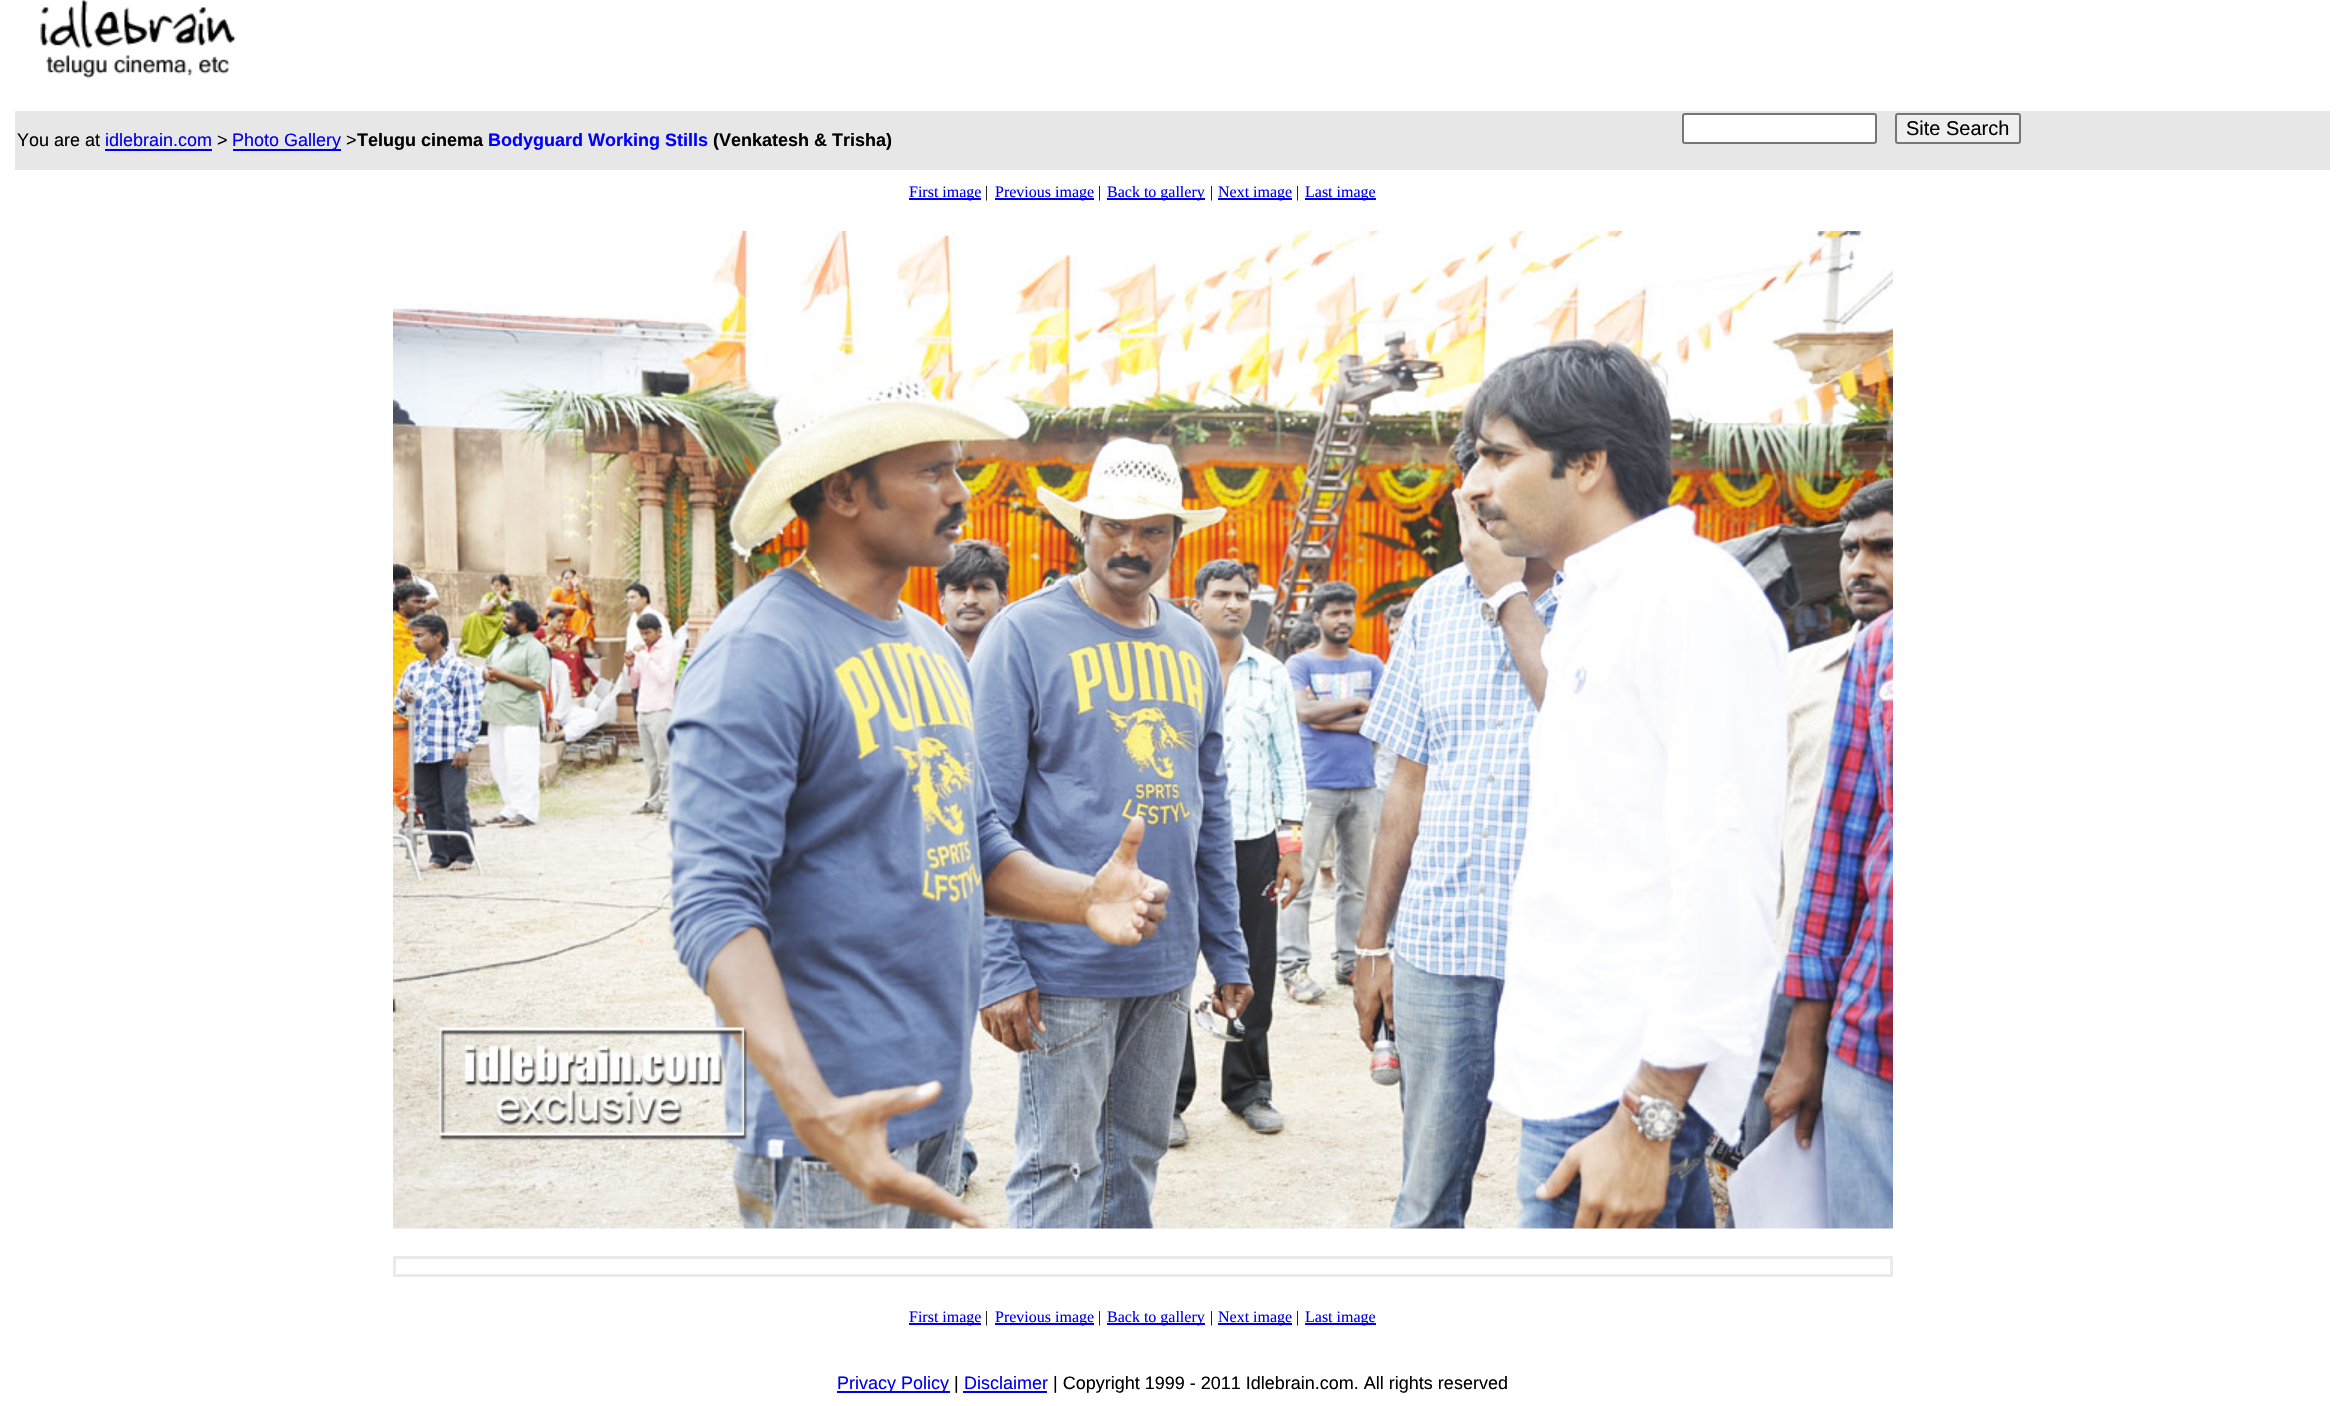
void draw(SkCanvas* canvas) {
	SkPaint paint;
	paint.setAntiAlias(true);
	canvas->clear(0xffffffff);
	canvas->drawImageRect(SkImages::DeferredFromEncodedData(SkData::MakeFromFileName("img1.png")), SkRect::MakeXYWH(40, 0, 196, 79), SkSamplingOptions());
	paint.setColor(0xffe7e7e7);
	canvas->drawRect(SkRect::MakeXYWH(15, 111, 2315, 59), paint);
	paint.setColor(0xffffffff);
	canvas->drawRoundRect(SkRect::MakeXYWH(1683, 114, 193, 29), 2, 2, paint);
	paint.setStroke(true);
	paint.setStrokeWidth(2);
	paint.setColor(0xff767676);
	canvas->drawRoundRect(SkRect::MakeXYWH(1683, 114, 193, 29), 2, 2, paint);
	paint.setStroke(false);
	paint.setColor(0xffefefef);
	canvas->drawRoundRect(SkRect::MakeXYWH(1896, 114, 124, 29), 2, 2, paint);
	paint.setStroke(true);
	paint.setColor(0xff767676);
	canvas->drawRoundRect(SkRect::MakeXYWH(1896, 114, 124, 29), 2, 2, paint);
	SkFont f1(fontMgr->matchFamilyStyle("Liberation Sans", SkFontStyle::Normal()), 20);
	f1.setSubpixel(true);
	paint.setStroke(false);
	paint.setColor(0xff000000);
	canvas->drawString("Site Search", 1906, 135, f1, paint);
	SkFont f2(fontMgr->matchFamilyStyle("Liberation Sans", SkFontStyle::Normal()), 18);
	f2.setSubpixel(true);
	canvas->drawString("You are at", 17, 146, f2, paint);
	paint.setColor(0xff0000ee);
	canvas->drawString("idlebrain.com", 105, 146, f2, paint);
	canvas->drawRect(SkRect::MakeXYWH(105, 149, 107, 2), paint);
	paint.setColor(0xff000000);
	canvas->drawString(">", 217, 146, f2, paint);
	paint.setColor(0xff0000ee);
	canvas->drawRect(SkRect::MakeXYWH(233, 149, 108, 2), paint);
	canvas->drawString("Photo Gallery", 232, 146, f2, paint);
	paint.setColor(0xff000000);
	canvas->drawString(">", 346, 146, f2, paint);
	SkFont f3(fontMgr->matchFamilyStyle("Liberation Sans", SkFontStyle::Bold()), 18);
	f3.setSubpixel(true);
	canvas->drawString("Telugu cinema", 357, 146, f3, paint);
	paint.setColor(0xff0000ff);
	canvas->drawString("Bodyguard Working Stills", 488, 146, f3, paint);
	paint.setColor(0xff000000);
	canvas->drawString("(Venkatesh & Trisha)", 713, 146, f3, paint);
	paint.setColor(0xff0000ee);
	canvas->drawRect(SkRect::MakeXYWH(909, 198, 72, 2), paint);
	SkFont f4(fontMgr->matchFamilyStyle("Liberation Serif", SkFontStyle::Normal()), 16);
	f4.setSubpixel(true);
	canvas->drawString("First image", 909, 197, f4, paint);
	paint.setColor(0xff000000);
	canvas->drawString("|", 985, 197, f4, paint);
	paint.setColor(0xff0000ee);
	canvas->drawRect(SkRect::MakeXYWH(995, 198, 99, 2), paint);
	canvas->drawString("Previous image", 995, 197, f4, paint);
	paint.setColor(0xff000000);
	canvas->drawString("|", 1098, 197, f4, paint);
	paint.setColor(0xff0000ee);
	canvas->drawRect(SkRect::MakeXYWH(1107, 198, 98, 2), paint);
	canvas->drawString("Back to gallery", 1107, 197, f4, paint);
	paint.setColor(0xff000000);
	canvas->drawString("|", 1210, 197, f4, paint);
	paint.setColor(0xff0000ee);
	canvas->drawRect(SkRect::MakeXYWH(1218, 198, 74, 2), paint);
	canvas->drawString("Next image", 1218, 197, f4, paint);
	paint.setColor(0xff000000);
	canvas->drawString("|", 1296, 197, f4, paint);
	paint.setColor(0xff0000ee);
	canvas->drawRect(SkRect::MakeXYWH(1305, 198, 71, 2), paint);
	canvas->drawString("Last image", 1305, 197, f4, paint);
	canvas->drawImageRect(SkImages::DeferredFromEncodedData(SkData::MakeFromFileName("img2.png")), SkRect::MakeXYWH(393, 231, 1500, 998), SkSamplingOptions());
	paint.setColor(0xffeaeaea);
	canvas->drawRect(SkRect::MakeXYWH(393, 1256, 1500, 21), paint);
	paint.setColor(0xffffffff);
	canvas->drawRect(SkRect::MakeXYWH(396, 1259, 1494, 15), paint);
	paint.setColor(0xff0000ee);
	canvas->drawRect(SkRect::MakeXYWH(909, 1323, 72, 2), paint);
	canvas->drawString("First image", 909, 1322, f4, paint);
	paint.setColor(0xff000000);
	canvas->drawString("|", 985, 1322, f4, paint);
	paint.setColor(0xff0000ee);
	canvas->drawRect(SkRect::MakeXYWH(995, 1323, 99, 2), paint);
	canvas->drawString("Previous image", 995, 1322, f4, paint);
	paint.setColor(0xff000000);
	canvas->drawString("|", 1098, 1322, f4, paint);
	paint.setColor(0xff0000ee);
	canvas->drawRect(SkRect::MakeXYWH(1107, 1323, 98, 2), paint);
	canvas->drawString("Back to gallery", 1107, 1322, f4, paint);
	paint.setColor(0xff000000);
	canvas->drawString("|", 1210, 1322, f4, paint);
	paint.setColor(0xff0000ee);
	canvas->drawRect(SkRect::MakeXYWH(1218, 1323, 74, 2), paint);
	canvas->drawString("Next image", 1218, 1322, f4, paint);
	paint.setColor(0xff000000);
	canvas->drawString("|", 1296, 1322, f4, paint);
	paint.setColor(0xff0000ee);
	canvas->drawRect(SkRect::MakeXYWH(1305, 1323, 71, 2), paint);
	canvas->drawString("Last image", 1305, 1322, f4, paint);
	canvas->drawRect(SkRect::MakeXYWH(837, 1391, 113, 2), paint);
	canvas->drawString("Privacy Policy", 837, 1389, f2, paint);
	paint.setColor(0xff000000);
	canvas->drawString("|", 954, 1389, f2, paint);
	paint.setColor(0xff0000ee);
	canvas->drawString("Disclaimer", 964, 1389, f2, paint);
	canvas->drawRect(SkRect::MakeXYWH(963, 1391, 84, 2), paint);
	paint.setColor(0xff000000);
	canvas->drawString("| Copyright 1999 - 2011 Idlebrain.com. All rights reserved", 1053, 1389, f2, paint);
}
